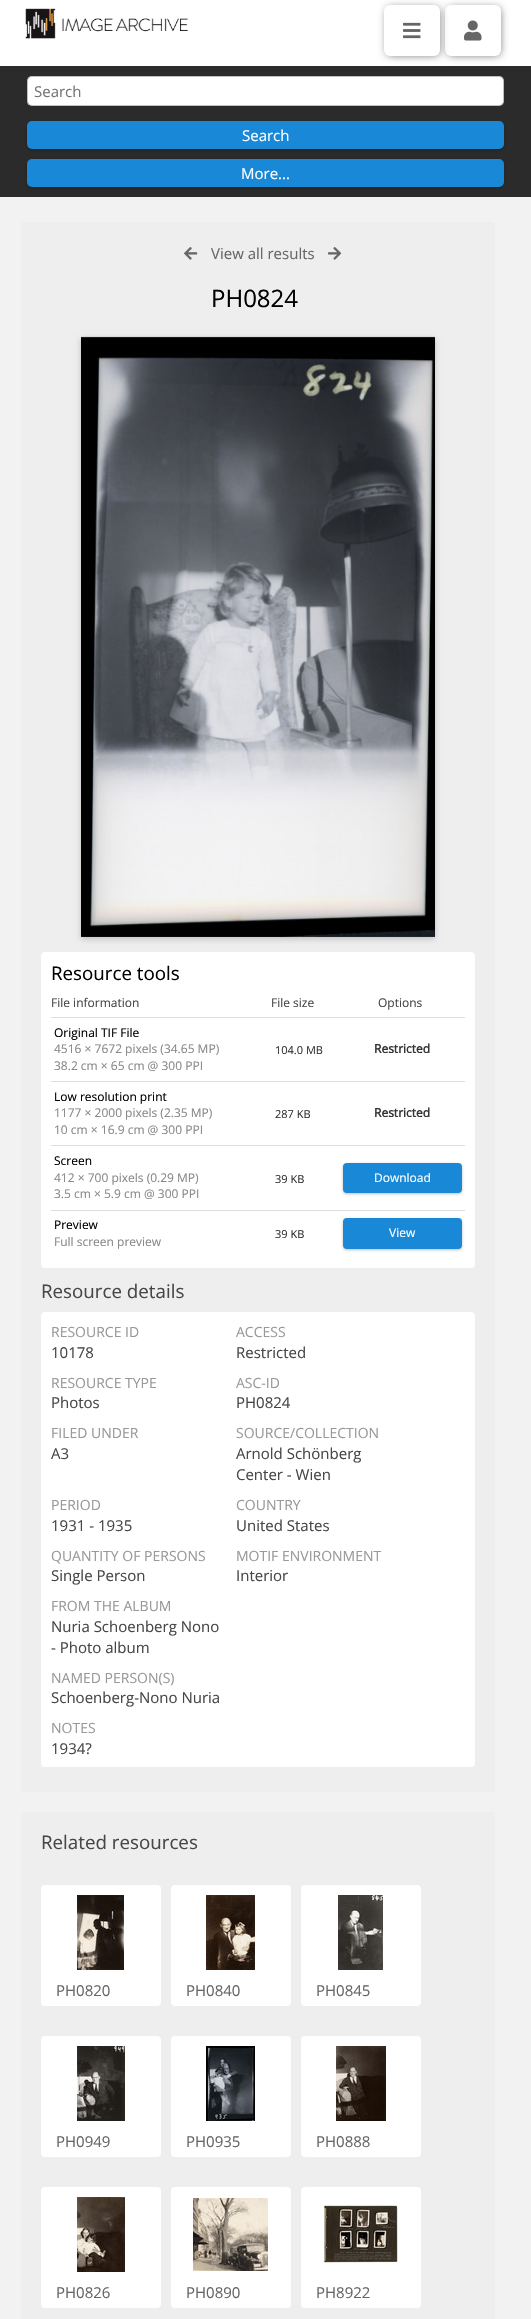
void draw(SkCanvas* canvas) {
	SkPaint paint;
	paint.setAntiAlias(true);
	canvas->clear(0xfff2f2f2);
	paint.setColor(0xffffffff);
	canvas->drawRect(SkRect::MakeXYWH(0, 0, 531, 66), paint);
	canvas->drawImageRect(SkImages::DeferredFromEncodedData(SkData::MakeFromFileName("img1.png")), SkRect::MakeXYWH(25, 8, 163, 31), SkSamplingOptions());
	paint.setColor(0xff666666);
	paint.setMaskFilter(SkMaskFilter::MakeBlur(kNormal_SkBlurStyle, 4));
	canvas->drawRoundRect(SkRect::MakeXYWH(448, 8, 52, 47), 4, 4, paint);
	paint.setMaskFilter(nullptr);
	paint.setColor(0xffffffff);
	canvas->drawRoundRect(SkRect::MakeXYWH(445, 5, 56, 51), 6, 6, paint);
	paint.setColor(0xff666666);
	paint.setMaskFilter(SkMaskFilter::MakeBlur(kNormal_SkBlurStyle, 4));
	canvas->drawRoundRect(SkRect::MakeXYWH(387, 8, 52, 47), 4, 4, paint);
	paint.setMaskFilter(nullptr);
	paint.setColor(0xffffffff);
	canvas->drawRoundRect(SkRect::MakeXYWH(384, 5, 56, 51), 6, 6, paint);
	canvas->drawImageRect(SkImages::DeferredFromEncodedData(SkData::MakeFromFileName("img2.png")), SkRect::MakeXYWH(403, 22, 18, 17), SkSamplingOptions());
	canvas->drawImageRect(SkImages::DeferredFromEncodedData(SkData::MakeFromFileName("img3.png")), SkRect::MakeXYWH(464, 20, 18, 21), SkSamplingOptions());
	paint.setColor(0xff2b2b2b);
	canvas->drawRect(SkRect::MakeXYWH(0, 66, 531, 131), paint);
	paint.setColor(0xffffffff);
	canvas->drawRoundRect(SkRect::MakeXYWH(27, 76, 477, 30), 5, 5, paint);
	paint.setStroke(true);
	paint.setStrokeWidth(1);
	paint.setColor(0x40000000);
	canvas->drawRoundRect(SkRect::MakeXYWH(27.5, 76.5, 476, 29), 4.5, 4.5, paint);
	SkFont f1(fontMgr->matchFamilyStyle("Open Sans", SkFontStyle::Normal()), 15);
	f1.setSubpixel(true);
	paint.setStroke(false);
	paint.setColor(0xff757575);
	canvas->drawString("Search", 34, 97, f1, paint);
	paint.setColor(0x40000000);
	paint.setMaskFilter(SkMaskFilter::MakeBlur(kNormal_SkBlurStyle, 1.5));
	canvas->drawRoundRect(SkRect::MakeXYWH(27, 122, 477, 28), 5, 5, paint);
	paint.setMaskFilter(nullptr);
	paint.setColor(0xff1988d7);
	canvas->drawRoundRect(SkRect::MakeXYWH(27, 121, 477, 28), 5, 5, paint);
	paint.setColor(0xffffffff);
	canvas->drawString("Search", 242, 141, f1, paint);
	paint.setColor(0x40000000);
	paint.setMaskFilter(SkMaskFilter::MakeBlur(kNormal_SkBlurStyle, 1.5));
	canvas->drawRoundRect(SkRect::MakeXYWH(27, 160, 477, 28), 5, 5, paint);
	paint.setMaskFilter(nullptr);
	paint.setColor(0xff1988d7);
	canvas->drawRoundRect(SkRect::MakeXYWH(27, 159, 477, 28), 5, 5, paint);
	paint.setColor(0xffffffff);
	canvas->drawString("More...", 241, 179, f1, paint);
	paint.setColor(0xffeeeeee);
	canvas->drawRoundRect(SkRect::MakeXYWH(21, 222, 474, 1570), 4, 4, paint);
	canvas->drawImageRect(SkImages::DeferredFromEncodedData(SkData::MakeFromFileName("img4.png")), SkRect::MakeXYWH(184, 247, 14, 13), SkSamplingOptions());
	paint.setColor(0xff666666);
	canvas->drawString("View all results", 211, 259, f1, paint);
	canvas->drawImageRect(SkImages::DeferredFromEncodedData(SkData::MakeFromFileName("img5.png")), SkRect::MakeXYWH(328, 247, 14, 13), SkSamplingOptions());
	SkFont f2(fontMgr->matchFamilyStyle("Open Sans", SkFontStyle::Normal()), 24);
	f2.setSubpixel(true);
	paint.setColor(0xff000000);
	canvas->drawString("PH0824", 211, 307, f2, paint);
	paint.setColor(0x33000000);
	paint.setMaskFilter(SkMaskFilter::MakeBlur(kNormal_SkBlurStyle, 3));
	canvas->drawRect(SkRect::MakeXYWH(81, 339, 354, 600), paint);
	paint.setMaskFilter(nullptr);
	canvas->drawImageRect(SkImages::DeferredFromEncodedData(SkData::MakeFromFileName("img6.png")), SkRect::MakeXYWH(81, 336, 354, 601), SkSamplingOptions());
	paint.setColor(0xffffffff);
	canvas->drawRoundRect(SkRect::MakeXYWH(41, 952, 434, 316), 4, 4, paint);
	SkFont f3(fontMgr->matchFamilyStyle("Open Sans", SkFontStyle::Normal()), 18.75);
	f3.setSubpixel(true);
	paint.setColor(0xff000000);
	canvas->drawString("Resource tools", 51, 980, f3, paint);
	SkFont f4(fontMgr->matchFamilyStyle("Open Sans", SkFontStyle::Normal()), 12);
	f4.setSubpixel(true);
	paint.setColor(0xff474747);
	canvas->drawString("File information", 51, 1007, f4, paint);
	canvas->drawString("File size", 271, 1007, f4, paint);
	canvas->drawString("Options", 378, 1007, f4, paint);
	paint.setColor(0xffdddddd);
	canvas->drawRect(SkRect::MakeXYWH(51, 1017, 414, 1), paint);
	paint.setColor(0xff000000);
	canvas->drawString("Original TIF File", 54, 1037, f4, paint);
	paint.setColor(0xff888888);
	canvas->drawString("4516 × 7672 pixels (34.65 MP)", 54, 1053, f4, paint);
	canvas->drawString("38.2 cm × 65 cm @ 300 PPI", 54, 1070, f4, paint);
	SkFont f5(fontMgr->matchFamilyStyle("Open Sans", SkFontStyle::Normal()), 11);
	f5.setSubpixel(true);
	paint.setColor(0xff333333);
	canvas->drawString("104.0 MB", 275, 1054, f5, paint);
	SkFont f6(fontMgr->matchFamilyStyle("Open Sans", SkFontStyle::Bold()), 12);
	f6.setSubpixel(true);
	canvas->drawString("Restricted", 374, 1053, f6, paint);
	paint.setColor(0xffdddddd);
	canvas->drawRect(SkRect::MakeXYWH(51, 1081, 414, 1), paint);
	paint.setColor(0xff000000);
	canvas->drawString("Low resolution print", 54, 1101, f4, paint);
	paint.setColor(0xff888888);
	canvas->drawString("1177 × 2000 pixels (2.35 MP)", 54, 1117, f4, paint);
	canvas->drawString("10 cm × 16.9 cm @ 300 PPI", 54, 1134, f4, paint);
	paint.setColor(0xff333333);
	canvas->drawString("287 KB", 275, 1118, f5, paint);
	canvas->drawString("Restricted", 374, 1117, f6, paint);
	paint.setColor(0xffdddddd);
	canvas->drawRect(SkRect::MakeXYWH(51, 1145, 414, 1), paint);
	paint.setColor(0xff000000);
	canvas->drawString("Screen", 54, 1165, f4, paint);
	paint.setColor(0xff888888);
	canvas->drawString("412 × 700 pixels (0.29 MP)", 54, 1182, f4, paint);
	canvas->drawString("3.5 cm × 5.9 cm @ 300 PPI", 54, 1198, f4, paint);
	paint.setColor(0xff333333);
	canvas->drawString("39 KB", 275, 1183, f5, paint);
	paint.setColor(0x40000000);
	paint.setMaskFilter(SkMaskFilter::MakeBlur(kNormal_SkBlurStyle, 1.5));
	canvas->drawRoundRect(SkRect::MakeXYWH(343, 1164, 119, 30), 4, 4, paint);
	paint.setMaskFilter(nullptr);
	paint.setColor(0xff1988d7);
	canvas->drawRoundRect(SkRect::MakeXYWH(343, 1163, 119, 30), 4, 4, paint);
	paint.setColor(0xffffffff);
	canvas->drawString("Download", 374, 1182, f4, paint);
	paint.setColor(0xffdddddd);
	canvas->drawRect(SkRect::MakeXYWH(51, 1210, 414, 1), paint);
	paint.setColor(0xff000000);
	canvas->drawString("Preview", 54, 1229, f4, paint);
	paint.setColor(0xff888888);
	canvas->drawString("Full screen preview", 54, 1246, f4, paint);
	paint.setColor(0xff333333);
	canvas->drawString("39 KB", 275, 1238, f5, paint);
	paint.setColor(0x40000000);
	paint.setMaskFilter(SkMaskFilter::MakeBlur(kNormal_SkBlurStyle, 1.5));
	canvas->drawRoundRect(SkRect::MakeXYWH(343, 1219, 119, 31), 4, 4, paint);
	paint.setMaskFilter(nullptr);
	paint.setColor(0xff1988d7);
	canvas->drawRoundRect(SkRect::MakeXYWH(343, 1218, 119, 31), 4, 4, paint);
	paint.setColor(0xffffffff);
	canvas->drawString("View", 389, 1237, f4, paint);
	paint.setColor(0xff474747);
	canvas->drawString("Resource details", 41, 1298, f3, paint);
	paint.setColor(0xffffffff);
	canvas->drawRoundRect(SkRect::MakeXYWH(41, 1312, 434, 455), 4, 4, paint);
	SkFont f7(fontMgr->matchFamilyStyle("Open Sans", SkFontStyle::Normal()), 14);
	f7.setSubpixel(true);
	paint.setColor(0xff999999);
	canvas->drawString("RESOURCE ID", 51, 1337, f7, paint);
	paint.setColor(0xff474747);
	canvas->drawString("10178", 51, 1358, f1, paint);
	paint.setColor(0xff999999);
	canvas->drawString("ACCESS", 236, 1337, f7, paint);
	paint.setColor(0xff474747);
	canvas->drawString("Restricted", 236, 1358, f1, paint);
	paint.setColor(0xff999999);
	canvas->drawString("RESOURCE TYPE", 51, 1388, f7, paint);
	paint.setColor(0xff474747);
	canvas->drawString("Photos", 51, 1408, f1, paint);
	paint.setColor(0xff999999);
	canvas->drawString("ASC-ID", 236, 1388, f7, paint);
	paint.setColor(0xff474747);
	canvas->drawString("PH0824", 236, 1408, f1, paint);
	paint.setColor(0xff999999);
	canvas->drawString("FILED UNDER", 51, 1438, f7, paint);
	paint.setColor(0xff474747);
	canvas->drawString("A3", 51, 1459, f1, paint);
	paint.setColor(0xff999999);
	canvas->drawString("SOURCE/COLLECTION", 236, 1438, f7, paint);
	paint.setColor(0xff474747);
	canvas->drawString("Arnold Schönberg", 236, 1459, f1, paint);
	canvas->drawString("Center - Wien", 236, 1480, f1, paint);
	paint.setColor(0xff999999);
	canvas->drawString("PERIOD", 51, 1510, f7, paint);
	paint.setColor(0xff474747);
	canvas->drawString("1931 - 1935", 51, 1531, f1, paint);
	paint.setColor(0xff999999);
	canvas->drawString("COUNTRY", 236, 1510, f7, paint);
	paint.setColor(0xff474747);
	canvas->drawString("United States", 236, 1531, f1, paint);
	paint.setColor(0xff999999);
	canvas->drawString("QUANTITY OF PERSONS", 51, 1561, f7, paint);
	paint.setColor(0xff474747);
	canvas->drawString("Single Person", 51, 1581, f1, paint);
	paint.setColor(0xff999999);
	canvas->drawString("MOTIF ENVIRONMENT", 236, 1561, f7, paint);
	paint.setColor(0xff474747);
	canvas->drawString("Interior", 236, 1581, f1, paint);
	paint.setColor(0xff999999);
	canvas->drawString("FROM THE ALBUM", 51, 1611, f7, paint);
	paint.setColor(0xff474747);
	canvas->drawString("Nuria Schoenberg Nono", 51, 1632, f1, paint);
	canvas->drawString("- Photo album", 51, 1653, f1, paint);
	paint.setColor(0xff999999);
	canvas->drawString("NAMED PERSON(S)", 51, 1683, f7, paint);
	paint.setColor(0xff474747);
	canvas->drawString("Schoenberg-Nono Nuria", 51, 1703, f1, paint);
	paint.setColor(0xff999999);
	canvas->drawString("NOTES", 51, 1733, f7, paint);
	paint.setColor(0xff474747);
	canvas->drawString("1934?", 51, 1754, f1, paint);
	paint.setColor(0xffeeeeee);
	canvas->drawRoundRect(SkRect::MakeXYWH(21, 1812, 474, 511), 4, 4, paint);
	paint.setColor(0xff474747);
	canvas->drawString("Related resources", 41, 1849, f3, paint);
	paint.setColor(0xffffffff);
	canvas->drawRoundRect(SkRect::MakeXYWH(41, 1885, 120, 121), 4, 4, paint);
	canvas->drawImageRect(SkImages::DeferredFromEncodedData(SkData::MakeFromFileName("img7.png")), SkRect::MakeXYWH(77, 1895, 47, 75), SkSamplingOptions());
	paint.setColor(0xff666666);
	canvas->drawString("PH0820", 56, 1996, f1, paint);
	paint.setColor(0xffffffff);
	canvas->drawRoundRect(SkRect::MakeXYWH(171, 1885, 120, 121), 4, 4, paint);
	canvas->drawImageRect(SkImages::DeferredFromEncodedData(SkData::MakeFromFileName("img8.png")), SkRect::MakeXYWH(206, 1895, 49, 75), SkSamplingOptions());
	paint.setColor(0xff666666);
	canvas->drawString("PH0840", 186, 1996, f1, paint);
	paint.setColor(0xffffffff);
	canvas->drawRoundRect(SkRect::MakeXYWH(301, 1885, 120, 121), 4, 4, paint);
	canvas->drawImageRect(SkImages::DeferredFromEncodedData(SkData::MakeFromFileName("img9.png")), SkRect::MakeXYWH(338, 1895, 45, 75), SkSamplingOptions());
	paint.setColor(0xff666666);
	canvas->drawString("PH0845", 316, 1996, f1, paint);
	paint.setColor(0xffffffff);
	canvas->drawRoundRect(SkRect::MakeXYWH(41, 2036, 120, 121), 4, 4, paint);
	canvas->drawImageRect(SkImages::DeferredFromEncodedData(SkData::MakeFromFileName("img10.png")), SkRect::MakeXYWH(77, 2046, 48, 75), SkSamplingOptions());
	paint.setColor(0xff666666);
	canvas->drawString("PH0949", 56, 2147, f1, paint);
	paint.setColor(0xffffffff);
	canvas->drawRoundRect(SkRect::MakeXYWH(171, 2036, 120, 121), 4, 4, paint);
	canvas->drawImageRect(SkImages::DeferredFromEncodedData(SkData::MakeFromFileName("img11.png")), SkRect::MakeXYWH(206, 2046, 49, 75), SkSamplingOptions());
	paint.setColor(0xff666666);
	canvas->drawString("PH0935", 186, 2147, f1, paint);
	paint.setColor(0xffffffff);
	canvas->drawRoundRect(SkRect::MakeXYWH(301, 2036, 120, 121), 4, 4, paint);
	canvas->drawImageRect(SkImages::DeferredFromEncodedData(SkData::MakeFromFileName("img12.png")), SkRect::MakeXYWH(336, 2046, 50, 75), SkSamplingOptions());
	paint.setColor(0xff666666);
	canvas->drawString("PH0888", 316, 2147, f1, paint);
	paint.setColor(0xffffffff);
	canvas->drawRoundRect(SkRect::MakeXYWH(41, 2187, 120, 121), 4, 4, paint);
	canvas->drawImageRect(SkImages::DeferredFromEncodedData(SkData::MakeFromFileName("img13.png")), SkRect::MakeXYWH(77, 2197, 48, 75), SkSamplingOptions());
	paint.setColor(0xff666666);
	canvas->drawString("PH0826", 56, 2298, f1, paint);
	paint.setColor(0xffffffff);
	canvas->drawRoundRect(SkRect::MakeXYWH(171, 2187, 120, 121), 4, 4, paint);
	canvas->drawImageRect(SkImages::DeferredFromEncodedData(SkData::MakeFromFileName("img14.png")), SkRect::MakeXYWH(193, 2198, 75, 73), SkSamplingOptions());
	paint.setColor(0xff666666);
	canvas->drawString("PH0890", 186, 2298, f1, paint);
	paint.setColor(0xffffffff);
	canvas->drawRoundRect(SkRect::MakeXYWH(301, 2187, 120, 121), 4, 4, paint);
	canvas->drawImageRect(SkImages::DeferredFromEncodedData(SkData::MakeFromFileName("img15.png")), SkRect::MakeXYWH(323, 2205, 75, 58), SkSamplingOptions());
	paint.setColor(0xff666666);
	canvas->drawString("PH8922", 316, 2298, f1, paint);
}
